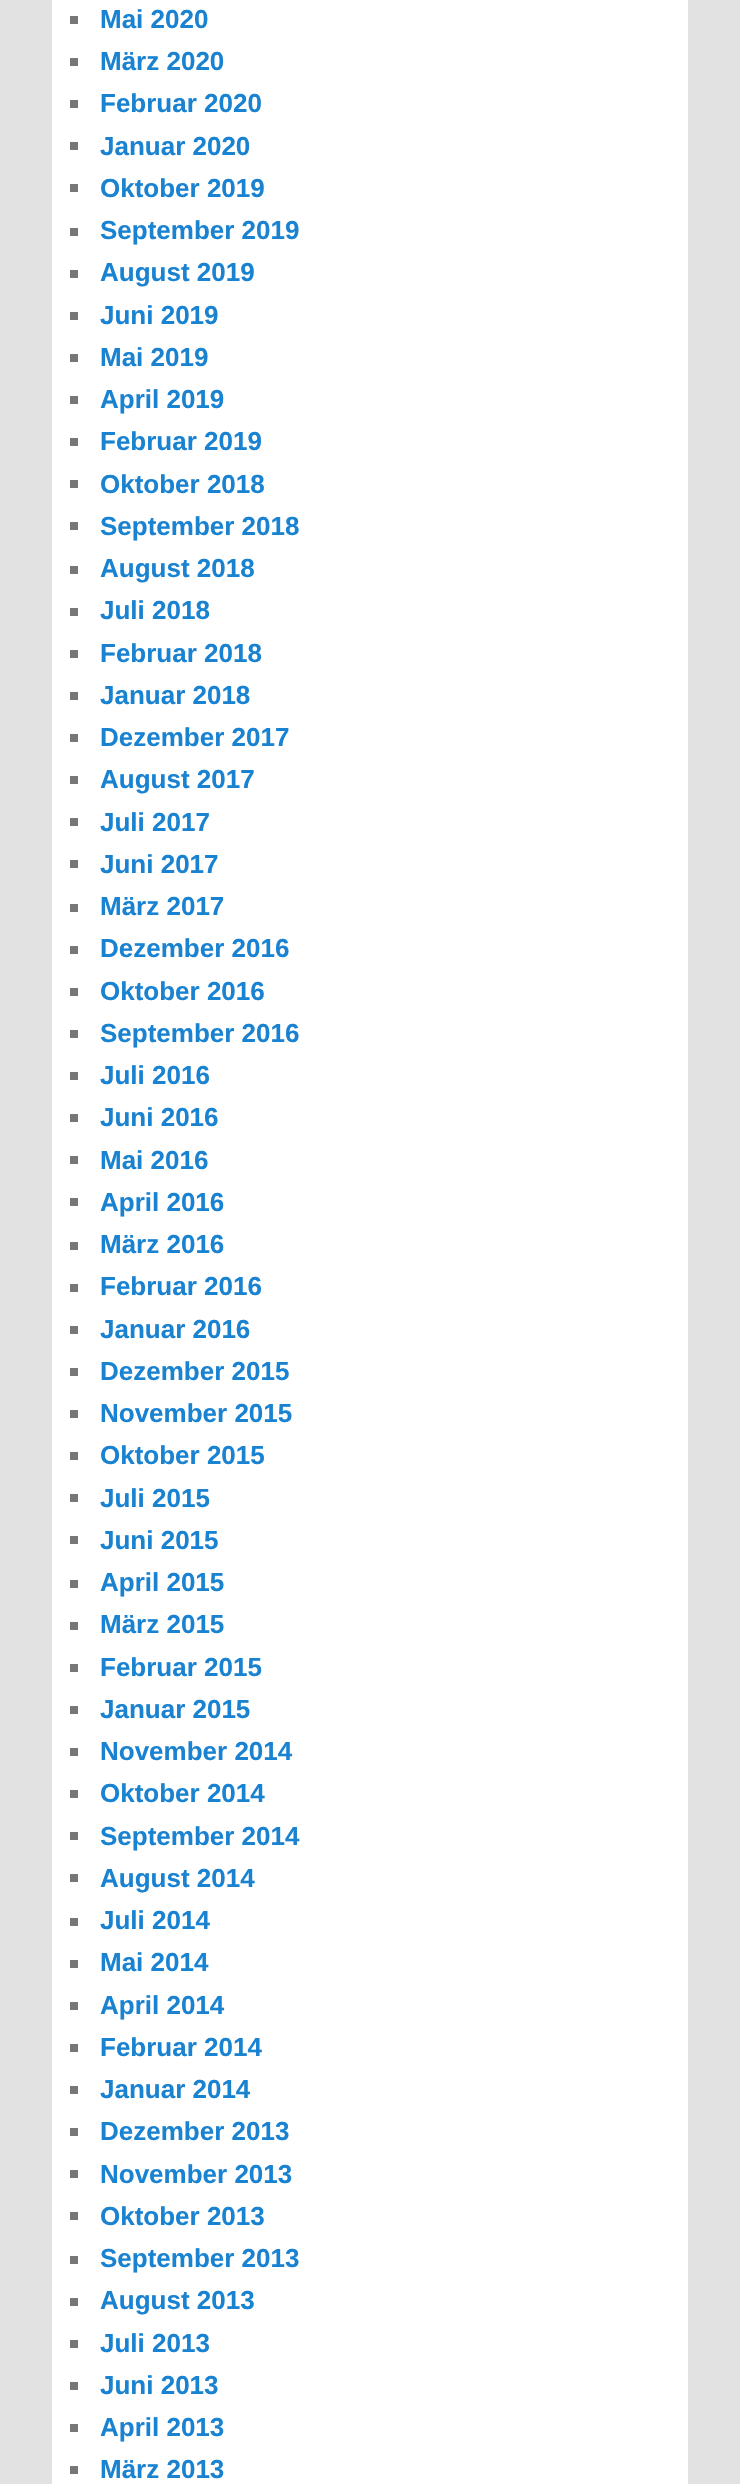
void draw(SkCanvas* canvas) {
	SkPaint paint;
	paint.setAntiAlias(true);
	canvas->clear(0xffe2e2e2);
	paint.setColor(0xffffffff);
	canvas->drawRect(SkRect::MakeXYWH(52, 0, 636, 2484), paint);
	paint.setColor(0xff777777);
	canvas->drawRect(SkRect::MakeXYWH(70, 16, 8, 8), paint);
	SkFont f1(fontMgr->matchFamilyStyle("Liberation Sans", SkFontStyle::Bold()), 26);
	f1.setSubpixel(true);
	paint.setColor(0xff1982d1);
	canvas->drawString("Mai 2020", 100, 28, f1, paint);
	paint.setColor(0xff777777);
	canvas->drawRect(SkRect::MakeXYWH(70, 58, 8, 8), paint);
	paint.setColor(0xff1982d1);
	canvas->drawString("März 2020", 100, 70, f1, paint);
	paint.setColor(0xff777777);
	canvas->drawRect(SkRect::MakeXYWH(70, 100, 8, 8), paint);
	paint.setColor(0xff1982d1);
	canvas->drawString("Februar 2020", 100, 112, f1, paint);
	paint.setColor(0xff777777);
	canvas->drawRect(SkRect::MakeXYWH(70, 142, 8, 8), paint);
	paint.setColor(0xff1982d1);
	canvas->drawString("Januar 2020", 100, 155, f1, paint);
	paint.setColor(0xff777777);
	canvas->drawRect(SkRect::MakeXYWH(70, 184, 8, 8), paint);
	paint.setColor(0xff1982d1);
	canvas->drawString("Oktober 2019", 100, 197, f1, paint);
	paint.setColor(0xff777777);
	canvas->drawRect(SkRect::MakeXYWH(70, 228, 8, 8), paint);
	paint.setColor(0xff1982d1);
	canvas->drawString("September 2019", 100, 239, f1, paint);
	paint.setColor(0xff777777);
	canvas->drawRect(SkRect::MakeXYWH(70, 270, 8, 8), paint);
	paint.setColor(0xff1982d1);
	canvas->drawString("August 2019", 100, 281, f1, paint);
	paint.setColor(0xff777777);
	canvas->drawRect(SkRect::MakeXYWH(70, 312, 8, 8), paint);
	paint.setColor(0xff1982d1);
	canvas->drawString("Juni 2019", 100, 324, f1, paint);
	paint.setColor(0xff777777);
	canvas->drawRect(SkRect::MakeXYWH(70, 354, 8, 8), paint);
	paint.setColor(0xff1982d1);
	canvas->drawString("Mai 2019", 100, 366, f1, paint);
	paint.setColor(0xff777777);
	canvas->drawRect(SkRect::MakeXYWH(70, 396, 8, 8), paint);
	paint.setColor(0xff1982d1);
	canvas->drawString("April 2019", 100, 408, f1, paint);
	paint.setColor(0xff777777);
	canvas->drawRect(SkRect::MakeXYWH(70, 438, 8, 8), paint);
	paint.setColor(0xff1982d1);
	canvas->drawString("Februar 2019", 100, 450, f1, paint);
	paint.setColor(0xff777777);
	canvas->drawRect(SkRect::MakeXYWH(70, 480, 8, 8), paint);
	paint.setColor(0xff1982d1);
	canvas->drawString("Oktober 2018", 100, 493, f1, paint);
	paint.setColor(0xff777777);
	canvas->drawRect(SkRect::MakeXYWH(70, 522, 8, 8), paint);
	paint.setColor(0xff1982d1);
	canvas->drawString("September 2018", 100, 535, f1, paint);
	paint.setColor(0xff777777);
	canvas->drawRect(SkRect::MakeXYWH(70, 566, 8, 8), paint);
	paint.setColor(0xff1982d1);
	canvas->drawString("August 2018", 100, 577, f1, paint);
	paint.setColor(0xff777777);
	canvas->drawRect(SkRect::MakeXYWH(70, 608, 8, 8), paint);
	paint.setColor(0xff1982d1);
	canvas->drawString("Juli 2018", 100, 619, f1, paint);
	paint.setColor(0xff777777);
	canvas->drawRect(SkRect::MakeXYWH(70, 650, 8, 8), paint);
	paint.setColor(0xff1982d1);
	canvas->drawString("Februar 2018", 100, 662, f1, paint);
	paint.setColor(0xff777777);
	canvas->drawRect(SkRect::MakeXYWH(70, 692, 8, 8), paint);
	paint.setColor(0xff1982d1);
	canvas->drawString("Januar 2018", 100, 704, f1, paint);
	paint.setColor(0xff777777);
	canvas->drawRect(SkRect::MakeXYWH(70, 734, 8, 8), paint);
	paint.setColor(0xff1982d1);
	canvas->drawString("Dezember 2017", 100, 746, f1, paint);
	paint.setColor(0xff777777);
	canvas->drawRect(SkRect::MakeXYWH(70, 776, 8, 8), paint);
	paint.setColor(0xff1982d1);
	canvas->drawString("August 2017", 100, 788, f1, paint);
	paint.setColor(0xff777777);
	canvas->drawRect(SkRect::MakeXYWH(70, 818, 8, 8), paint);
	paint.setColor(0xff1982d1);
	canvas->drawString("Juli 2017", 100, 831, f1, paint);
	paint.setColor(0xff777777);
	canvas->drawRect(SkRect::MakeXYWH(70, 860, 8, 8), paint);
	paint.setColor(0xff1982d1);
	canvas->drawString("Juni 2017", 100, 873, f1, paint);
	paint.setColor(0xff777777);
	canvas->drawRect(SkRect::MakeXYWH(70, 904, 8, 8), paint);
	paint.setColor(0xff1982d1);
	canvas->drawString("März 2017", 100, 915, f1, paint);
	paint.setColor(0xff777777);
	canvas->drawRect(SkRect::MakeXYWH(70, 946, 8, 8), paint);
	paint.setColor(0xff1982d1);
	canvas->drawString("Dezember 2016", 100, 957, f1, paint);
	paint.setColor(0xff777777);
	canvas->drawRect(SkRect::MakeXYWH(70, 988, 8, 8), paint);
	paint.setColor(0xff1982d1);
	canvas->drawString("Oktober 2016", 100, 1000, f1, paint);
	paint.setColor(0xff777777);
	canvas->drawRect(SkRect::MakeXYWH(70, 1030, 8, 8), paint);
	paint.setColor(0xff1982d1);
	canvas->drawString("September 2016", 100, 1042, f1, paint);
	paint.setColor(0xff777777);
	canvas->drawRect(SkRect::MakeXYWH(70, 1072, 8, 8), paint);
	paint.setColor(0xff1982d1);
	canvas->drawString("Juli 2016", 100, 1084, f1, paint);
	paint.setColor(0xff777777);
	canvas->drawRect(SkRect::MakeXYWH(70, 1114, 8, 8), paint);
	paint.setColor(0xff1982d1);
	canvas->drawString("Juni 2016", 100, 1126, f1, paint);
	paint.setColor(0xff777777);
	canvas->drawRect(SkRect::MakeXYWH(70, 1156, 8, 8), paint);
	paint.setColor(0xff1982d1);
	canvas->drawString("Mai 2016", 100, 1169, f1, paint);
	paint.setColor(0xff777777);
	canvas->drawRect(SkRect::MakeXYWH(70, 1198, 8, 8), paint);
	paint.setColor(0xff1982d1);
	canvas->drawString("April 2016", 100, 1211, f1, paint);
	paint.setColor(0xff777777);
	canvas->drawRect(SkRect::MakeXYWH(70, 1242, 8, 8), paint);
	paint.setColor(0xff1982d1);
	canvas->drawString("März 2016", 100, 1253, f1, paint);
	paint.setColor(0xff777777);
	canvas->drawRect(SkRect::MakeXYWH(70, 1284, 8, 8), paint);
	paint.setColor(0xff1982d1);
	canvas->drawString("Februar 2016", 100, 1295, f1, paint);
	paint.setColor(0xff777777);
	canvas->drawRect(SkRect::MakeXYWH(70, 1326, 8, 8), paint);
	paint.setColor(0xff1982d1);
	canvas->drawString("Januar 2016", 100, 1338, f1, paint);
	paint.setColor(0xff777777);
	canvas->drawRect(SkRect::MakeXYWH(70, 1368, 8, 8), paint);
	paint.setColor(0xff1982d1);
	canvas->drawString("Dezember 2015", 100, 1380, f1, paint);
	paint.setColor(0xff777777);
	canvas->drawRect(SkRect::MakeXYWH(70, 1410, 8, 8), paint);
	paint.setColor(0xff1982d1);
	canvas->drawString("November 2015", 100, 1422, f1, paint);
	paint.setColor(0xff777777);
	canvas->drawRect(SkRect::MakeXYWH(70, 1452, 8, 8), paint);
	paint.setColor(0xff1982d1);
	canvas->drawString("Oktober 2015", 100, 1464, f1, paint);
	paint.setColor(0xff777777);
	canvas->drawRect(SkRect::MakeXYWH(70, 1494, 8, 8), paint);
	paint.setColor(0xff1982d1);
	canvas->drawString("Juli 2015", 100, 1507, f1, paint);
	paint.setColor(0xff777777);
	canvas->drawRect(SkRect::MakeXYWH(70, 1536, 8, 8), paint);
	paint.setColor(0xff1982d1);
	canvas->drawString("Juni 2015", 100, 1549, f1, paint);
	paint.setColor(0xff777777);
	canvas->drawRect(SkRect::MakeXYWH(70, 1580, 8, 8), paint);
	paint.setColor(0xff1982d1);
	canvas->drawString("April 2015", 100, 1591, f1, paint);
	paint.setColor(0xff777777);
	canvas->drawRect(SkRect::MakeXYWH(70, 1622, 8, 8), paint);
	paint.setColor(0xff1982d1);
	canvas->drawString("März 2015", 100, 1633, f1, paint);
	paint.setColor(0xff777777);
	canvas->drawRect(SkRect::MakeXYWH(70, 1664, 8, 8), paint);
	paint.setColor(0xff1982d1);
	canvas->drawString("Februar 2015", 100, 1676, f1, paint);
	paint.setColor(0xff777777);
	canvas->drawRect(SkRect::MakeXYWH(70, 1706, 8, 8), paint);
	paint.setColor(0xff1982d1);
	canvas->drawString("Januar 2015", 100, 1718, f1, paint);
	paint.setColor(0xff777777);
	canvas->drawRect(SkRect::MakeXYWH(70, 1748, 8, 8), paint);
	paint.setColor(0xff1982d1);
	canvas->drawString("November 2014", 100, 1760, f1, paint);
	paint.setColor(0xff777777);
	canvas->drawRect(SkRect::MakeXYWH(70, 1790, 8, 8), paint);
	paint.setColor(0xff1982d1);
	canvas->drawString("Oktober 2014", 100, 1802, f1, paint);
	paint.setColor(0xff777777);
	canvas->drawRect(SkRect::MakeXYWH(70, 1832, 8, 8), paint);
	paint.setColor(0xff1982d1);
	canvas->drawString("September 2014", 100, 1845, f1, paint);
	paint.setColor(0xff777777);
	canvas->drawRect(SkRect::MakeXYWH(70, 1874, 8, 8), paint);
	paint.setColor(0xff1982d1);
	canvas->drawString("August 2014", 100, 1887, f1, paint);
	paint.setColor(0xff777777);
	canvas->drawRect(SkRect::MakeXYWH(70, 1918, 8, 8), paint);
	paint.setColor(0xff1982d1);
	canvas->drawString("Juli 2014", 100, 1929, f1, paint);
	paint.setColor(0xff777777);
	canvas->drawRect(SkRect::MakeXYWH(70, 1960, 8, 8), paint);
	paint.setColor(0xff1982d1);
	canvas->drawString("Mai 2014", 100, 1971, f1, paint);
	paint.setColor(0xff777777);
	canvas->drawRect(SkRect::MakeXYWH(70, 2002, 8, 8), paint);
	paint.setColor(0xff1982d1);
	canvas->drawString("April 2014", 100, 2014, f1, paint);
	paint.setColor(0xff777777);
	canvas->drawRect(SkRect::MakeXYWH(70, 2044, 8, 8), paint);
	paint.setColor(0xff1982d1);
	canvas->drawString("Februar 2014", 100, 2056, f1, paint);
	paint.setColor(0xff777777);
	canvas->drawRect(SkRect::MakeXYWH(70, 2086, 8, 8), paint);
	paint.setColor(0xff1982d1);
	canvas->drawString("Januar 2014", 100, 2098, f1, paint);
	paint.setColor(0xff777777);
	canvas->drawRect(SkRect::MakeXYWH(70, 2128, 8, 8), paint);
	paint.setColor(0xff1982d1);
	canvas->drawString("Dezember 2013", 100, 2140, f1, paint);
	paint.setColor(0xff777777);
	canvas->drawRect(SkRect::MakeXYWH(70, 2170, 8, 8), paint);
	paint.setColor(0xff1982d1);
	canvas->drawString("November 2013", 100, 2183, f1, paint);
	paint.setColor(0xff777777);
	canvas->drawRect(SkRect::MakeXYWH(70, 2212, 8, 8), paint);
	paint.setColor(0xff1982d1);
	canvas->drawString("Oktober 2013", 100, 2225, f1, paint);
	paint.setColor(0xff777777);
	canvas->drawRect(SkRect::MakeXYWH(70, 2256, 8, 8), paint);
	paint.setColor(0xff1982d1);
	canvas->drawString("September 2013", 100, 2267, f1, paint);
	paint.setColor(0xff777777);
	canvas->drawRect(SkRect::MakeXYWH(70, 2298, 8, 8), paint);
	paint.setColor(0xff1982d1);
	canvas->drawString("August 2013", 100, 2309, f1, paint);
	paint.setColor(0xff777777);
	canvas->drawRect(SkRect::MakeXYWH(70, 2340, 8, 8), paint);
	paint.setColor(0xff1982d1);
	canvas->drawString("Juli 2013", 100, 2352, f1, paint);
	paint.setColor(0xff777777);
	canvas->drawRect(SkRect::MakeXYWH(70, 2382, 8, 8), paint);
	paint.setColor(0xff1982d1);
	canvas->drawString("Juni 2013", 100, 2394, f1, paint);
	paint.setColor(0xff777777);
	canvas->drawRect(SkRect::MakeXYWH(70, 2424, 8, 8), paint);
	paint.setColor(0xff1982d1);
	canvas->drawString("April 2013", 100, 2436, f1, paint);
	paint.setColor(0xff777777);
	canvas->drawRect(SkRect::MakeXYWH(70, 2466, 8, 8), paint);
	paint.setColor(0xff1982d1);
	canvas->drawString("März 2013", 100, 2478, f1, paint);
}
